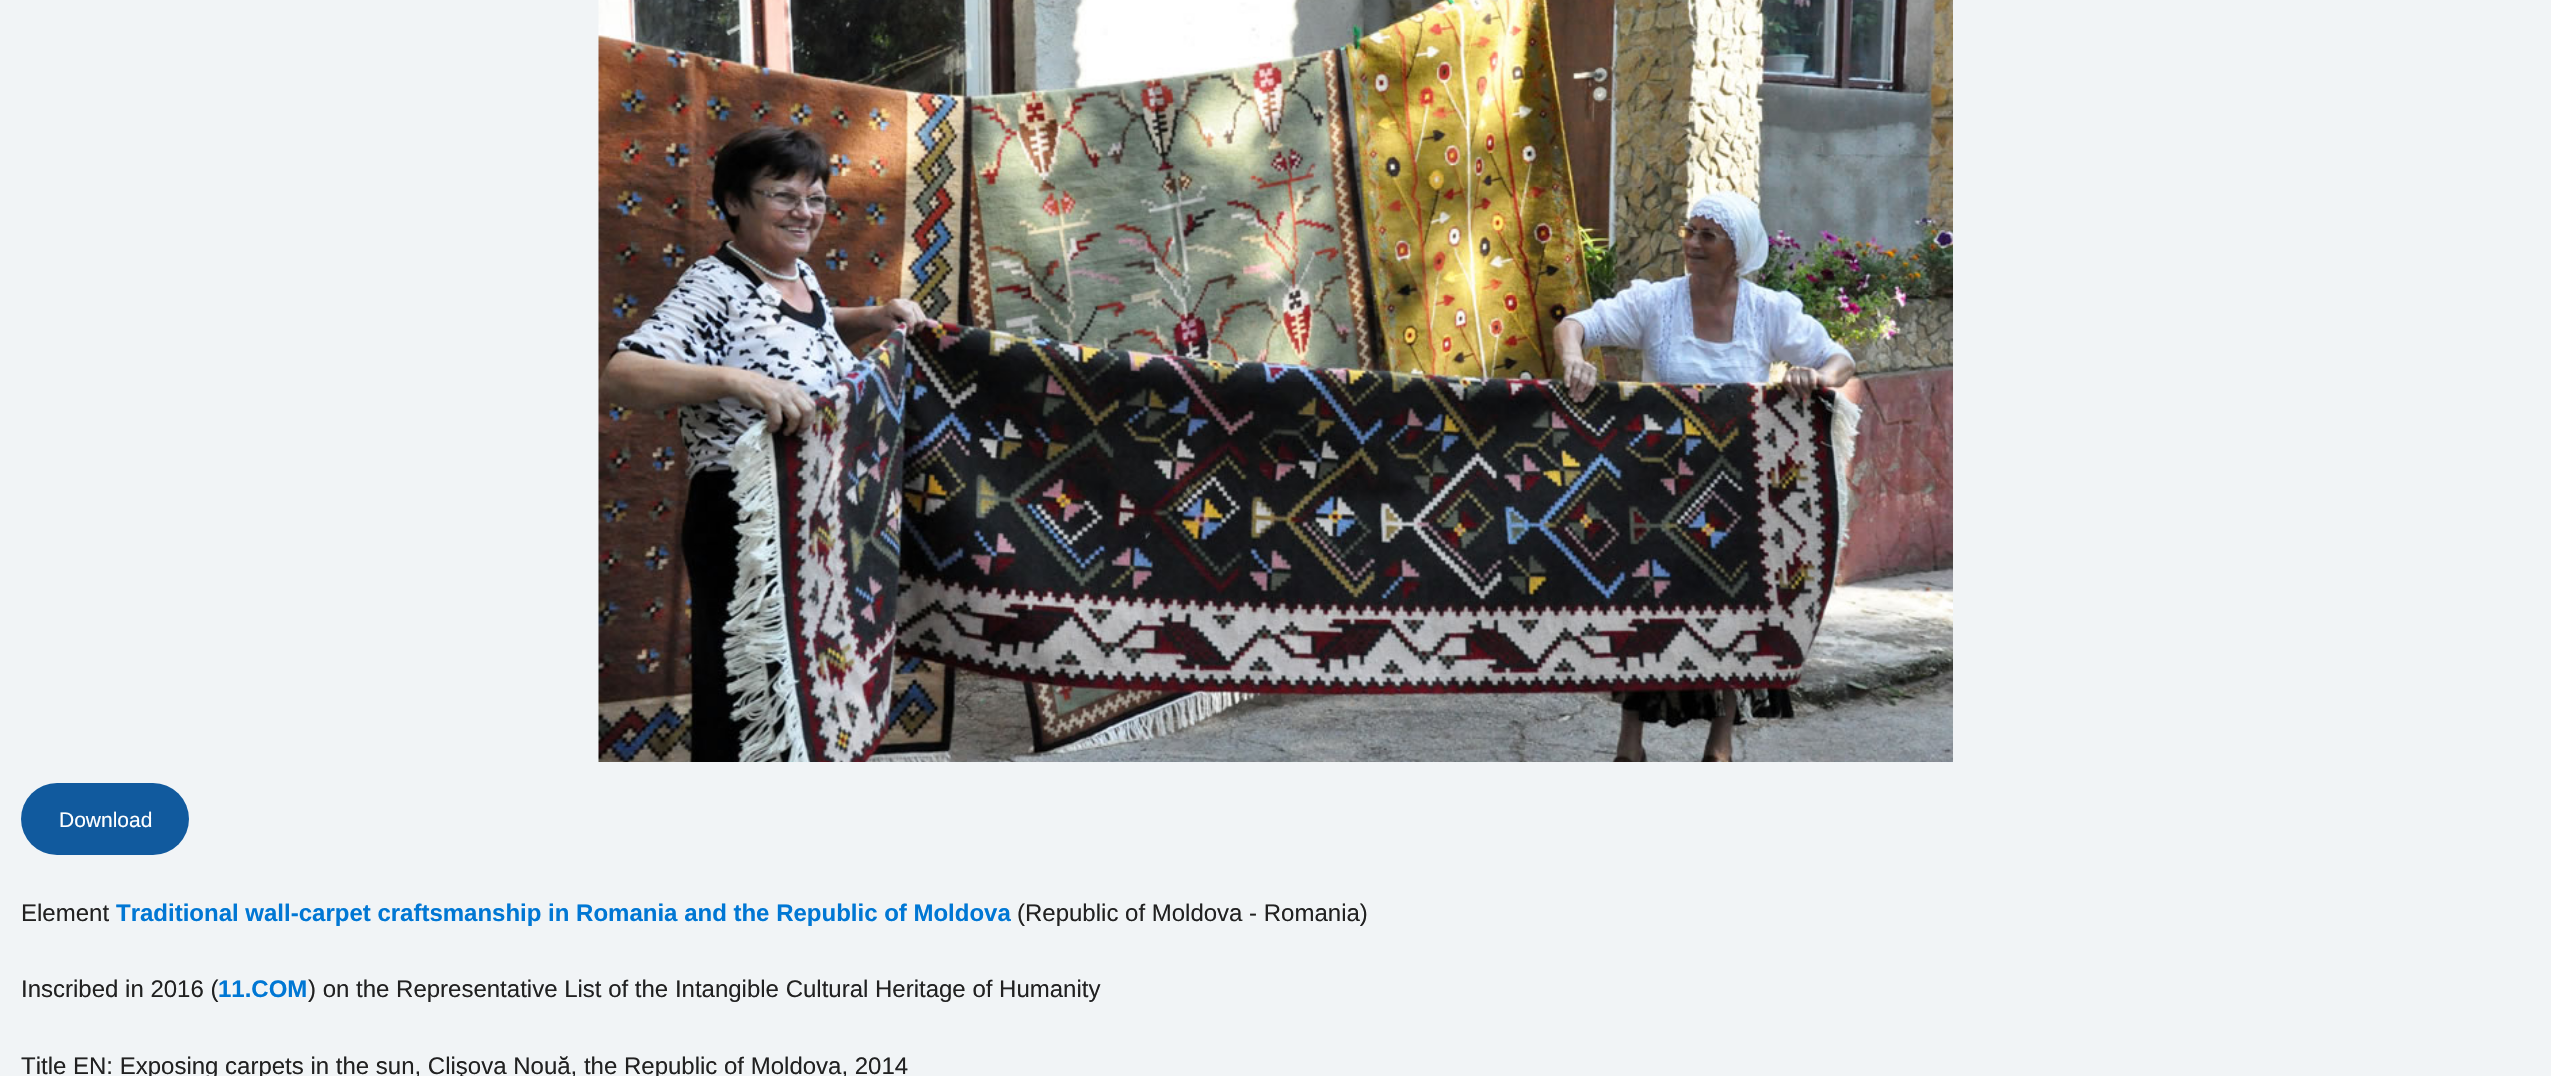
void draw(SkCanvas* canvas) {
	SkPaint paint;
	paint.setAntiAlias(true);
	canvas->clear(0xfff1f4f6);
	canvas->drawImageRect(SkImages::DeferredFromEncodedData(SkData::MakeFromFileName("img1.png")), SkRect::MakeXYWH(598, 0, 1355, 762), SkSamplingOptions());
	paint.setColor(0xff115a9e);
	canvas->drawRoundRect(SkRect::MakeXYWH(21, 783, 168, 72), 36, 36, paint);
	SkFont f1(fontMgr->matchFamilyStyle("Liberation Sans", SkFontStyle::Normal()), 21);
	f1.setSubpixel(true);
	paint.setColor(0xffffffff);
	canvas->drawString("Download", 59, 827, f1, paint);
	SkFont f2(fontMgr->matchFamilyStyle("Liberation Sans", SkFontStyle::Normal()), 24);
	f2.setSubpixel(true);
	paint.setColor(0xff212121);
	canvas->drawString("Element", 21, 921, f2, paint);
	SkFont f3(fontMgr->matchFamilyStyle("Liberation Sans", SkFontStyle::Bold()), 24);
	f3.setSubpixel(true);
	paint.setColor(0xff0077d4);
	canvas->drawString("Traditional wall-carpet craftsmanship in Romania and the Republic of Moldova", 116, 921, f3, paint);
	paint.setColor(0xff212121);
	canvas->drawString("(Republic of Moldova - Romania)", 1017, 921, f2, paint);
	canvas->drawString("Inscribed in 2016 (", 21, 997, f2, paint);
	paint.setColor(0xff0077d4);
	canvas->drawString("11.COM", 218, 997, f3, paint);
	paint.setColor(0xff212121);
	canvas->drawString(") on the Representative List of the Intangible Cultural Heritage of Humanity", 308, 997, f2, paint);
	canvas->drawString("Title EN: Exposing carpets in the sun, Clişova Nouă, the Republic of Moldova, 2014", 21, 1074, f2, paint);
}
